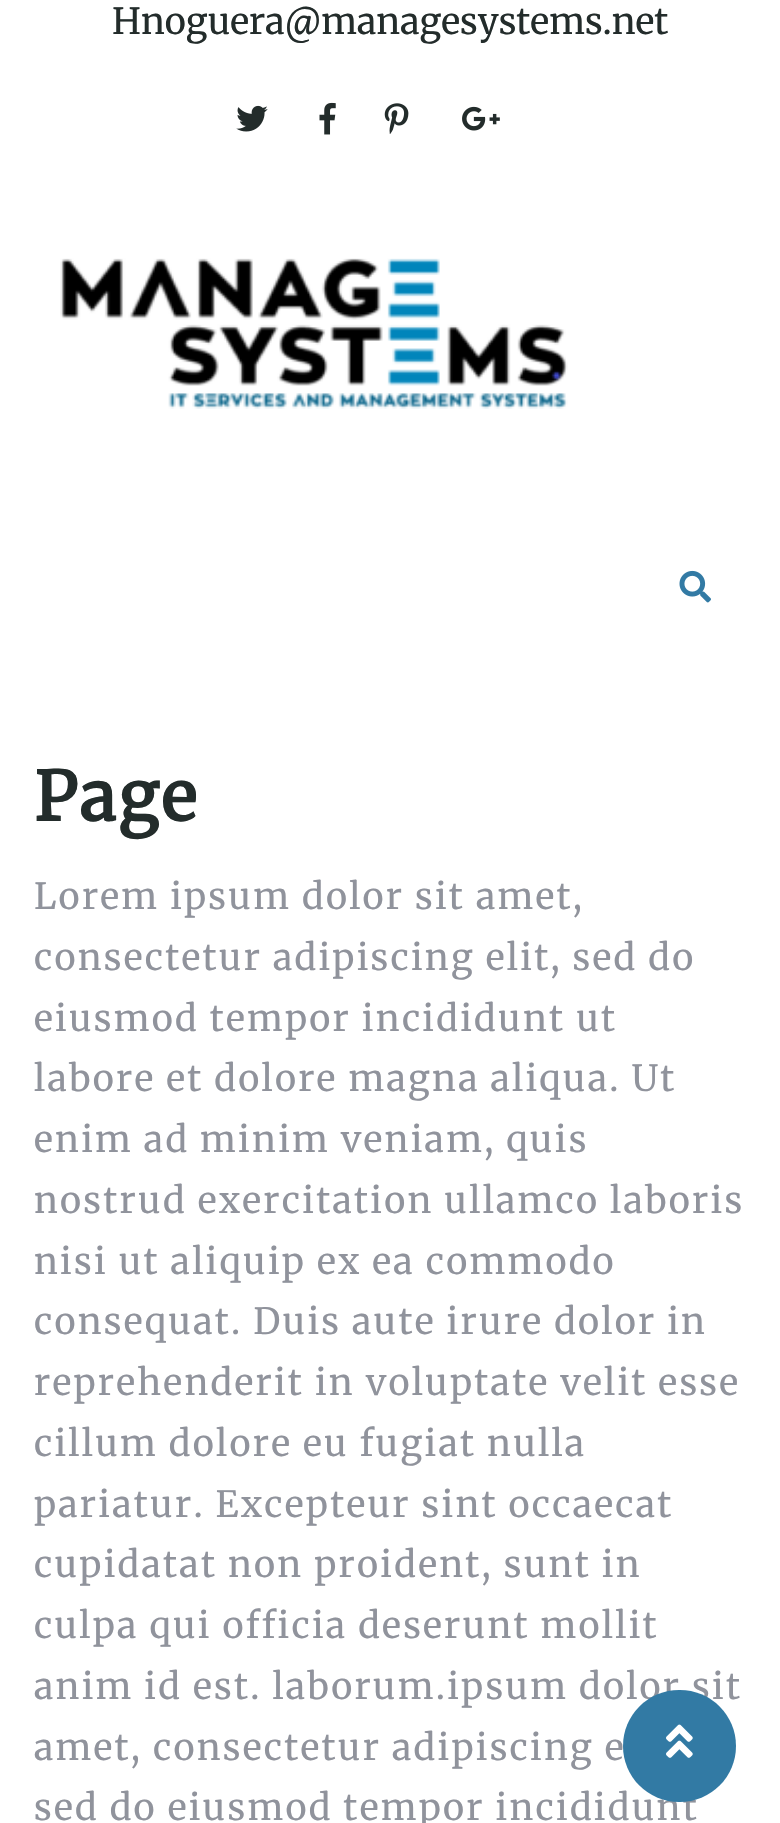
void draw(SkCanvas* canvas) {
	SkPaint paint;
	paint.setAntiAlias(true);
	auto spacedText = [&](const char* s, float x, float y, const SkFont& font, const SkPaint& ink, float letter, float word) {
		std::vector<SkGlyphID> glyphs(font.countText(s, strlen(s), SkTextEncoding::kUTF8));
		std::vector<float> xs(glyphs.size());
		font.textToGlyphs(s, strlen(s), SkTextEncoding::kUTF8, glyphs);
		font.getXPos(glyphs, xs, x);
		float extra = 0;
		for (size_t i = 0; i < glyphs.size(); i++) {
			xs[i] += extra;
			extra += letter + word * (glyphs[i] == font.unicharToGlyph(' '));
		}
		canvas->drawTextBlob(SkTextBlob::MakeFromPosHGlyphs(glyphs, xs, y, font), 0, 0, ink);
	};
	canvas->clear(0xffffffff);
	SkFont f1(fontMgr->matchFamilyStyle("Merriweather", SkFontStyle(300, SkFontStyle::kNormal_Width, SkFontStyle::kUpright_Slant)), 36);
	f1.setSubpixel(true);
	paint.setColor(0xff232c2b);
	canvas->drawString("Hnoguera@managesystems.net", 112, 34, f1, paint);
	canvas->drawImageRect(SkImages::DeferredFromEncodedData(SkData::MakeFromFileName("img1.png")), SkRect::MakeXYWH(236, 105, 32, 27), SkSamplingOptions());
	canvas->drawImageRect(SkImages::DeferredFromEncodedData(SkData::MakeFromFileName("img2.png")), SkRect::MakeXYWH(319, 102, 17, 33), SkSamplingOptions());
	canvas->drawImageRect(SkImages::DeferredFromEncodedData(SkData::MakeFromFileName("img3.png")), SkRect::MakeXYWH(384, 103, 25, 31), SkSamplingOptions());
	canvas->drawImageRect(SkImages::DeferredFromEncodedData(SkData::MakeFromFileName("img4.png")), SkRect::MakeXYWH(462, 106, 38, 25), SkSamplingOptions());
	canvas->drawImageRect(SkImages::DeferredFromEncodedData(SkData::MakeFromFileName("img5.png")), SkRect::MakeXYWH(60, 258, 508, 151), SkSamplingOptions());
	canvas->drawImageRect(SkImages::DeferredFromEncodedData(SkData::MakeFromFileName("img6.png")), SkRect::MakeXYWH(679, 570, 32, 33), SkSamplingOptions());
	SkFont f2(fontMgr->matchFamilyStyle("Merriweather", SkFontStyle::Bold()), 67.5);
	f2.setSubpixel(true);
	spacedText("Page", 34, 821, f2, paint, 2.25, 0);
	paint.setColor(0xff90939c);
	spacedText("Lorem ipsum dolor sit amet,", 34, 909, f1, paint, 2.25, 0);
	spacedText("consectetur adipiscing elit, sed do", 34, 970, f1, paint, 2.25, 0);
	spacedText("eiusmod tempor incididunt ut", 34, 1031, f1, paint, 2.25, 0);
	spacedText("labore et dolore magna aliqua. Ut", 34, 1091, f1, paint, 2.25, 0);
	spacedText("enim ad minim veniam, quis", 34, 1152, f1, paint, 2.25, 0);
	spacedText("nostrud exercitation ullamco laboris", 34, 1213, f1, paint, 2.25, 0);
	spacedText("nisi ut aliquip ex ea commodo", 34, 1274, f1, paint, 2.25, 0);
	spacedText("consequat. Duis aute irure dolor in", 34, 1334, f1, paint, 2.25, 0);
	spacedText("reprehenderit in voluptate velit esse", 34, 1395, f1, paint, 2.25, 0);
	spacedText("cillum dolore eu fugiat nulla", 34, 1456, f1, paint, 2.25, 0);
	spacedText("pariatur. Excepteur sint occaecat", 34, 1517, f1, paint, 2.25, 0);
	spacedText("cupidatat non proident, sunt in", 34, 1577, f1, paint, 2.25, 0);
	spacedText("culpa qui officia deserunt mollit", 34, 1638, f1, paint, 2.25, 0);
	spacedText("anim id est. laborum.ipsum dolor sit", 34, 1699, f1, paint, 2.25, 0);
	spacedText("amet, consectetur adipiscing e", 34, 1760, f1, paint, 2.25, 0);
	spacedText("sed do eiusmod tempor incididunt", 34, 1820, f1, paint, 2.25, 0);
	paint.setColor(0xff327aa4);
	canvas->drawRoundRect(SkRect::MakeXYWH(623, 1690, 113, 112), 56, 56, paint);
	canvas->drawImageRect(SkImages::DeferredFromEncodedData(SkData::MakeFromFileName("img7.png")), SkRect::MakeXYWH(666, 1724, 27, 34), SkSamplingOptions());
}
